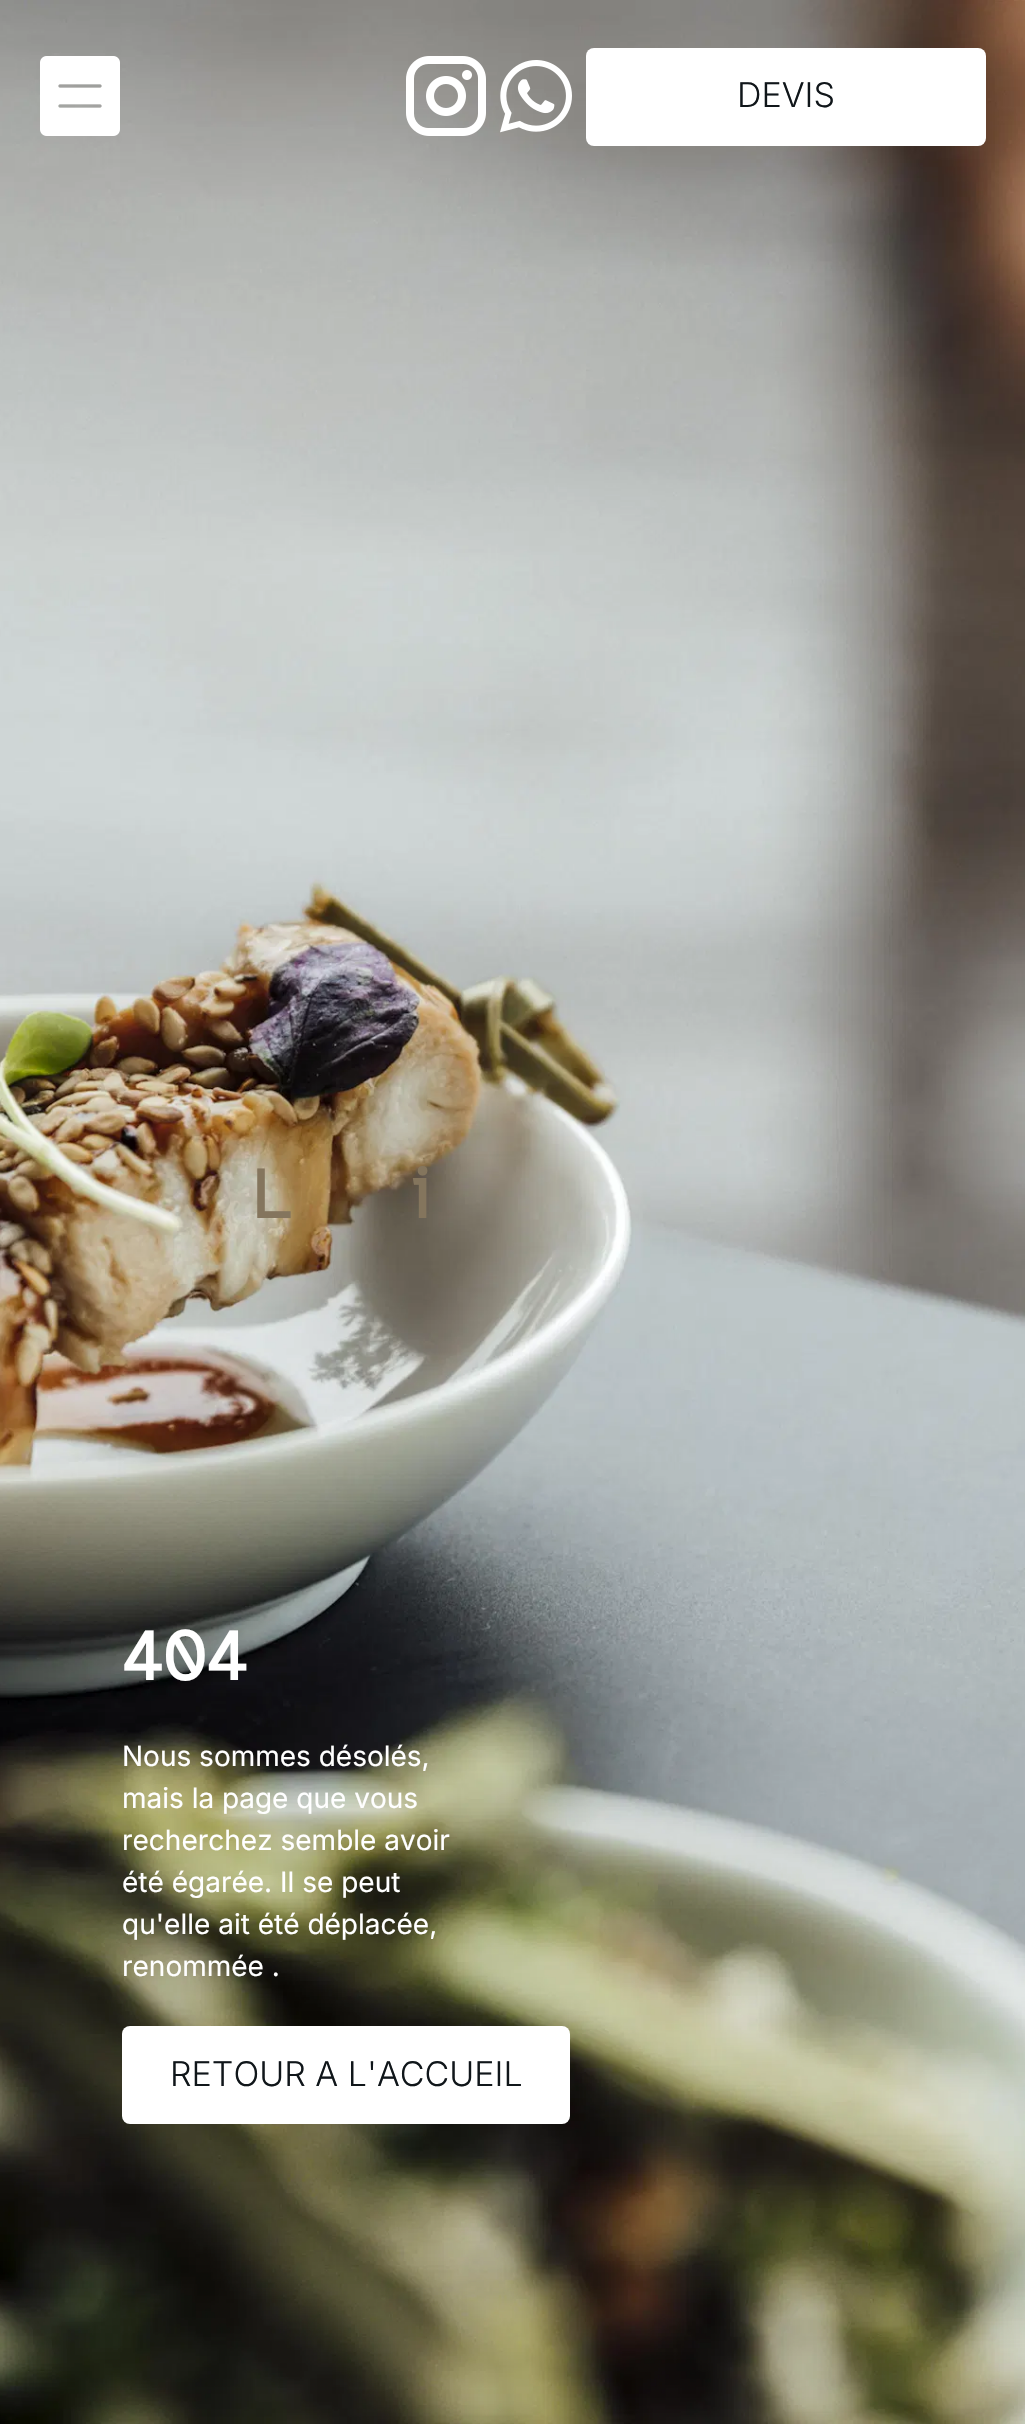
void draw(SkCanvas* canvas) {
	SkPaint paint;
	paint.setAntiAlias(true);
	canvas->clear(0xffffffff);
	canvas->drawImageRect(SkImages::DeferredFromEncodedData(SkData::MakeFromFileName("img4.png")), SkRect::MakeXYWH(0, 0, 1025, 2424), SkSamplingOptions());
	canvas->drawImageRect(SkImages::DeferredFromEncodedData(SkData::MakeFromFileName("img1.png")), SkRect::MakeXYWH(40, 56, 80, 80), SkSamplingOptions());
	canvas->drawImageRect(SkImages::DeferredFromEncodedData(SkData::MakeFromFileName("img2.png")), SkRect::MakeXYWH(406, 56, 80, 80), SkSamplingOptions());
	canvas->drawImageRect(SkImages::DeferredFromEncodedData(SkData::MakeFromFileName("img3.png")), SkRect::MakeXYWH(500, 60, 72, 73), SkSamplingOptions());
	paint.setColor(0xffffffff);
	canvas->drawRoundRect(SkRect::MakeXYWH(586, 48, 400, 98), 8, 8, paint);
	SkFont f1(fontMgr->matchFamilyStyle("Inter", SkFontStyle(300, SkFontStyle::kNormal_Width, SkFontStyle::kUpright_Slant)), 34);
	f1.setSubpixel(true);
	paint.setColor(0xff10161a);
	canvas->drawString("DEVIS", 737, 107, f1, paint);
	SkFont f2(fontMgr->matchFamilyStyle("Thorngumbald", SkFontStyle::Bold()), 68);
	f2.setSubpixel(true);
	paint.setColor(0xff84755d);
	canvas->drawString("L", 252, 1218, f2, paint);
	canvas->drawString("i", 412, 1218, f2, paint);
	paint.setColor(0xffffffff);
	canvas->drawString("404", 122, 1680, f2, paint);
	SkFont f3(fontMgr->matchFamilyStyle("Inter", SkFontStyle::Normal()), 28);
	f3.setSubpixel(true);
	canvas->drawString("Nous sommes désolés,", 122, 1766, f3, paint);
	canvas->drawString("mais la page que vous", 122, 1808, f3, paint);
	canvas->drawString("recherchez semble avoir", 122, 1850, f3, paint);
	canvas->drawString("été égarée. Il se peut", 122, 1892, f3, paint);
	canvas->drawString("qu'elle ait été déplacée,", 122, 1934, f3, paint);
	canvas->drawString("renommée .", 122, 1976, f3, paint);
	canvas->drawRoundRect(SkRect::MakeXYWH(122, 2026, 448, 98), 8, 8, paint);
	paint.setColor(0xff10161a);
	canvas->drawString("RETOUR A L'ACCUEIL", 170, 2086, f1, paint);
}
